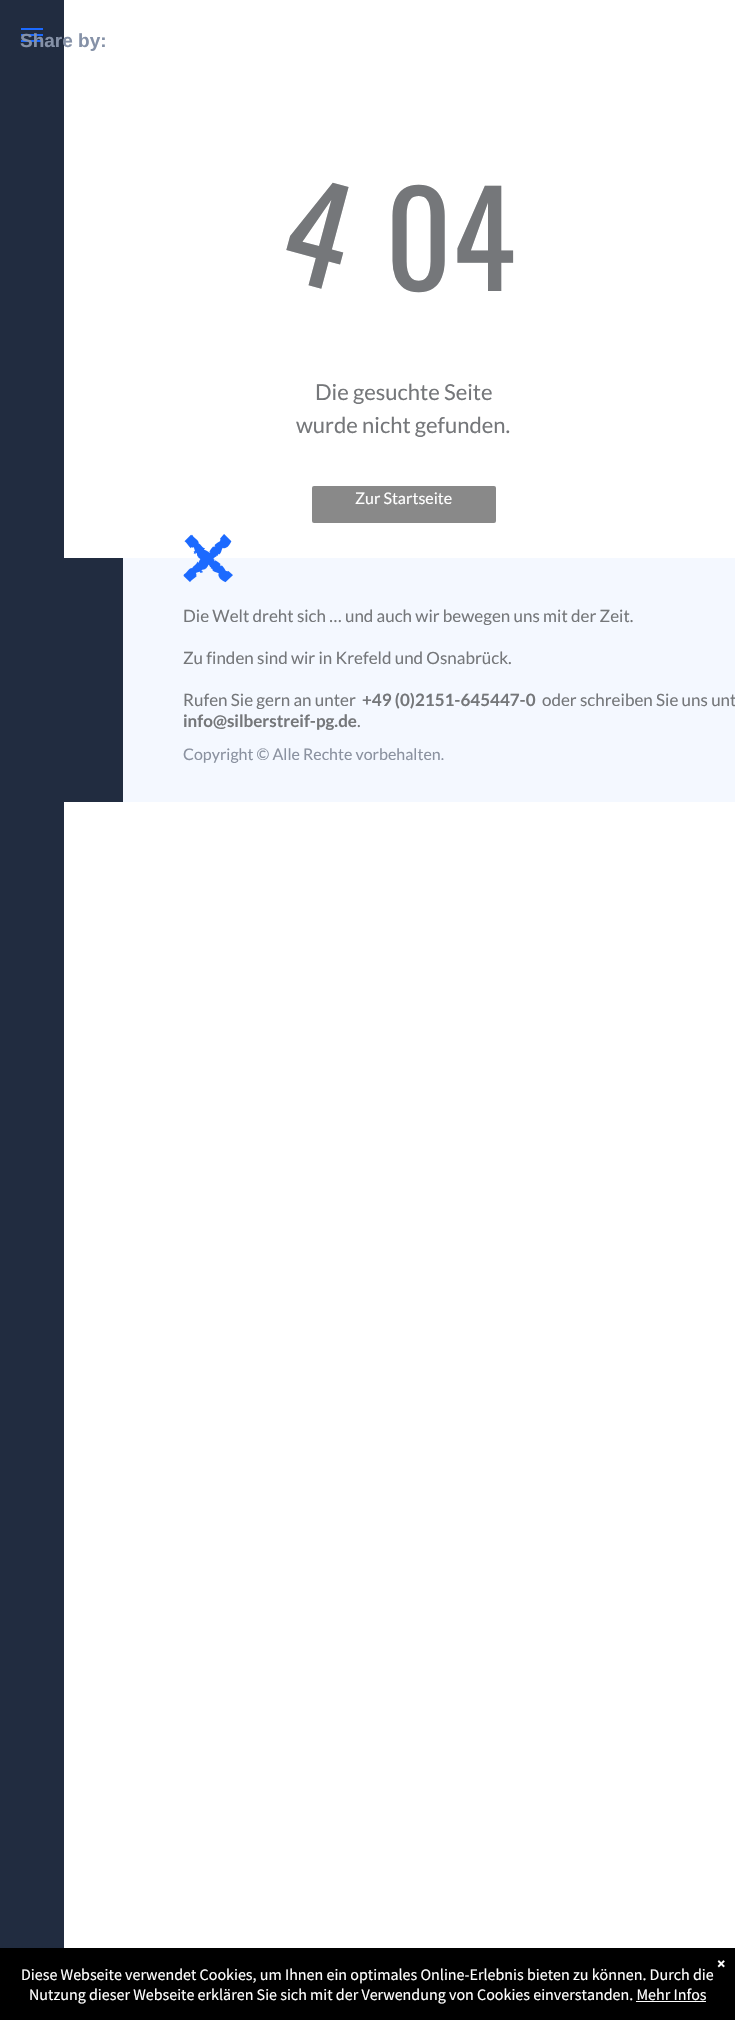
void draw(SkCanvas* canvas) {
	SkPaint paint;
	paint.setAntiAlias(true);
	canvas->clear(0xffffffff);
	paint.setColor(0xff212c40);
	canvas->drawRect(SkRect::MakeXYWH(0, 0, 64, 1948), paint);
	paint.setColor(0xff1c6aff);
	canvas->drawRect(SkRect::MakeXYWH(21, 34, 22, 2), paint);
	canvas->drawRect(SkRect::MakeXYWH(21, 40, 22, 2), paint);
	SkFont f1(fontMgr->matchFamilyStyle("Liberation Sans", SkFontStyle::Bold()), 19);
	f1.setSubpixel(true);
	paint.setColor(0xff8591a7);
	canvas->drawString("Share by:", 20, 47, f1, paint);
	paint.setColor(0xff1c6aff);
	canvas->drawRect(SkRect::MakeXYWH(21, 28, 22, 2), paint);
	SkFont f2(fontMgr->matchFamilyStyle("Oswald", SkFontStyle::Normal()), 130);
	f2.setSubpixel(true);
	paint.setColor(0xff75777a);
	canvas->save();
	canvas->rotate(15, 274, 276);
	canvas->drawString("4", 274, 276, f2, paint);
	canvas->restore();
	canvas->drawString("04", 385, 291, f2, paint);
	SkFont f3(fontMgr->matchFamilyStyle("Lato", SkFontStyle::Normal()), 22);
	f3.setSubpixel(true);
	canvas->drawString("Die gesuchte Seite", 315, 400, f3, paint);
	canvas->drawString("wurde nicht gefunden.", 296, 433, f3, paint);
	paint.setColor(0xff898989);
	canvas->drawRoundRect(SkRect::MakeXYWH(312, 486, 184, 37), 2, 2, paint);
	SkFont f4(fontMgr->matchFamilyStyle("Lato", SkFontStyle::Normal()), 16);
	f4.setSubpixel(true);
	paint.setColor(0xffffffff);
	canvas->drawString("Zur Startseite", 355, 504, f4, paint);
	paint.setColor(0xfff4f8ff);
	canvas->drawRect(SkRect::MakeXYWH(123, 558, 612, 244), paint);
	paint.setColor(0xff212c40);
	canvas->drawRect(SkRect::MakeXYWH(64, 558, 59, 244), paint);
	canvas->drawImageRect(SkImages::DeferredFromEncodedData(SkData::MakeFromFileName("img1.png")), SkRect::MakeXYWH(183, 534, 50, 49), SkSamplingOptions());
	SkFont f5(fontMgr->matchFamilyStyle("Lato", SkFontStyle::Normal()), 17);
	f5.setSubpixel(true);
	paint.setColor(0xff75777a);
	canvas->drawString("Die Welt dreht sich … und auch wir bewegen uns mit der Zeit.", 183, 622, f5, paint);
	canvas->drawString("Zu finden sind wir in Krefeld und Osnabrück.", 183, 664, f5, paint);
	canvas->drawString("Rufen Sie gern an unter", 183, 706, f5, paint);
	SkFont f6(fontMgr->matchFamilyStyle("Lato", SkFontStyle::Bold()), 17);
	f6.setSubpixel(true);
	canvas->drawString("+49 (0)2151-645447-0", 362, 706, f6, paint);
	canvas->drawString("oder schreiben Sie uns unt", 542, 706, f5, paint);
	canvas->drawString("info@silberstreif-pg.de", 183, 727, f6, paint);
	canvas->drawString(".", 357, 727, f5, paint);
	paint.setColor(0xff8b92a0);
	canvas->drawString("Copyright © Alle Rechte vorbehalten.", 183, 760, f4, paint);
	paint.setColor(0xff000000);
	canvas->drawRect(SkRect::MakeXYWH(0, 1948, 735, 72), paint);
	SkFont f7(fontMgr->matchFamilyStyle("Source Sans Pro", SkFontStyle::Bold()), 16);
	f7.setSubpixel(true);
	paint.setColor(0xffffffff);
	canvas->drawString("×", 717, 1969, f7, paint);
	SkFont f8(fontMgr->matchFamilyStyle("Source Sans Pro", SkFontStyle::Normal()), 16);
	f8.setSubpixel(true);
	canvas->drawString("Diese Webseite verwendet Cookies, um Ihnen ein optimales Online-Erlebnis bieten zu können. Durch die", 21, 1980, f8, paint);
	canvas->drawString("Nutzung dieser Webseite erklären Sie sich mit der Verwendung von Cookies einverstanden. Mehr Infos", 29, 2000, f8, paint);
	canvas->drawRect(SkRect::MakeXYWH(636, 2001, 70, 1), paint);
}
